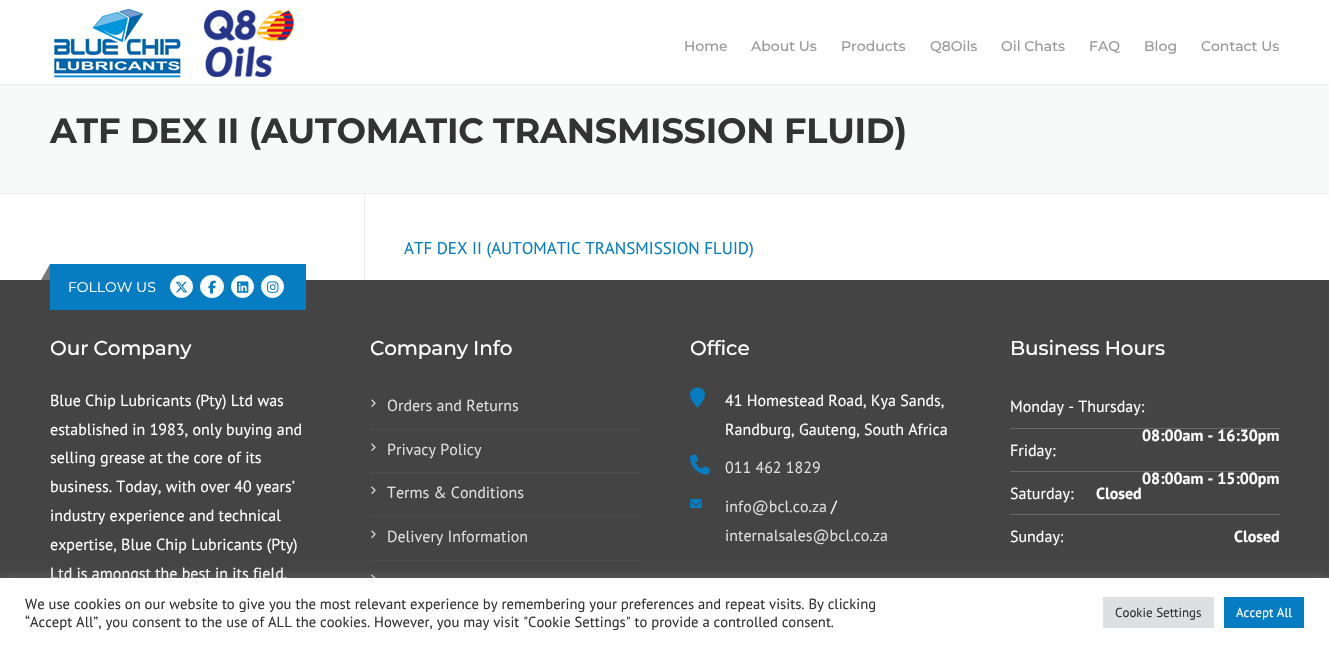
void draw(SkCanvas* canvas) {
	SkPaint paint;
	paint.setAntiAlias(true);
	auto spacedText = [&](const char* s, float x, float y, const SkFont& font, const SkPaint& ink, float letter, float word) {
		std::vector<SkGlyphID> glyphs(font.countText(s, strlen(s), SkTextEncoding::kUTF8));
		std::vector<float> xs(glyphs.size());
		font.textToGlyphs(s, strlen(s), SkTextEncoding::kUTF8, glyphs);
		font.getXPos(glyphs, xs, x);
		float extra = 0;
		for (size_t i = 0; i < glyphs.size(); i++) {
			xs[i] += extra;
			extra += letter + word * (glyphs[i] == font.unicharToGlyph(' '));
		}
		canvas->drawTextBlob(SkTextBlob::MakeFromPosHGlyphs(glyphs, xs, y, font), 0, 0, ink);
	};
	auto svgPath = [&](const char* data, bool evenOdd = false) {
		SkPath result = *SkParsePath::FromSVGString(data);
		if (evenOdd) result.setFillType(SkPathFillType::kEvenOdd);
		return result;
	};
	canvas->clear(0xffffffff);
	paint.setColor(0xfff8f9f9);
	canvas->drawRect(SkRect::MakeXYWH(0, 84, 1329, 109), paint);
	canvas->save();
	canvas->clipRect(SkRect::MakeXYWH(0, 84, 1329, 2));
	paint.setColor(0x14000000);
	paint.setMaskFilter(SkMaskFilter::MakeBlur(kNormal_SkBlurStyle, 1.5));
	canvas->drawRect(SkRect::MakeXYWH(0, 1, 1329, 84), paint);
	paint.setMaskFilter(nullptr);
	canvas->restore();
	canvas->drawImageRect(SkImages::DeferredFromEncodedData(SkData::MakeFromFileName("img1.png")), SkRect::MakeXYWH(54, 8, 240, 70), SkSamplingOptions());
	SkFont f1(fontMgr->matchFamilyStyle("Montserrat", SkFontStyle(500, SkFontStyle::kNormal_Width, SkFontStyle::kUpright_Slant)), 14);
	f1.setSubpixel(true);
	paint.setColor(0xff999999);
	canvas->drawString("Home", 684, 51, f1, paint);
	canvas->drawString("About Us", 751, 51, f1, paint);
	canvas->drawString("Products", 841, 51, f1, paint);
	canvas->drawString("Q8Oils", 930, 51, f1, paint);
	canvas->drawString("Oil Chats", 1001, 51, f1, paint);
	canvas->drawString("FAQ", 1089, 51, f1, paint);
	canvas->drawString("Blog", 1144, 51, f1, paint);
	canvas->drawString("Contact Us", 1201, 51, f1, paint);
	paint.setColor(0xffececec);
	canvas->drawRect(SkRect::MakeXYWH(0, 193, 1329, 1), paint);
	SkFont f2(fontMgr->matchFamilyStyle("Montserrat", SkFontStyle::Bold()), 35);
	f2.setSubpixel(true);
	paint.setColor(0xff333333);
	spacedText("ATF DEX II (AUTOMATIC TRANSMISSION FLUID)", 50, 143, f2, paint, -0.2, 0);
	paint.setColor(0xffececec);
	canvas->drawRect(SkRect::MakeXYWH(364, 194, 1, 86), paint);
	SkFont f3(fontMgr->matchFamilyStyle("PT Sans", SkFontStyle::Normal()), 17);
	f3.setSubpixel(true);
	paint.setColor(0xff067cc2);
	canvas->drawString("ATF DEX II (AUTOMATIC TRANSMISSION FLUID)", 404, 254, f3, paint);
	paint.setColor(0xff444444);
	canvas->drawRect(SkRect::MakeXYWH(0, 280, 1329, 298), paint);
	paint.setColor(0xff067cc2);
	canvas->drawRect(SkRect::MakeXYWH(50, 264, 256, 46), paint);
	paint.setColor(0xff777777);
	canvas->drawPath(svgPath("M50 264V280H41Z"), paint);
	SkFont f4(fontMgr->matchFamilyStyle("Montserrat", SkFontStyle::Normal()), 14);
	f4.setSubpixel(true);
	paint.setColor(0xffffffff);
	canvas->drawString("FOLLOW US", 68, 292, f4, paint);
	canvas->drawCircle(181.5, 286.5, 11, paint);
	paint.setStroke(true);
	paint.setStrokeWidth(1);
	canvas->drawCircle(181.5, 286.5, 11, paint);
	canvas->drawImageRect(SkImages::DeferredFromEncodedData(SkData::MakeFromFileName("img2.png")), SkRect::MakeXYWH(175, 281, 13, 12), SkSamplingOptions());
	paint.setStroke(false);
	canvas->drawRoundRect(SkRect::MakeXYWH(200.5, 275.5, 23, 22), 11, 11, paint);
	paint.setStroke(true);
	canvas->drawRoundRect(SkRect::MakeXYWH(200.5, 275.5, 23, 22), 11, 11, paint);
	canvas->drawImageRect(SkImages::DeferredFromEncodedData(SkData::MakeFromFileName("img3.png")), SkRect::MakeXYWH(208, 280, 8, 14), SkSamplingOptions());
	paint.setStroke(false);
	canvas->drawCircle(242.5, 286.5, 11, paint);
	paint.setStroke(true);
	canvas->drawCircle(242.5, 286.5, 11, paint);
	canvas->drawImageRect(SkImages::DeferredFromEncodedData(SkData::MakeFromFileName("img4.png")), SkRect::MakeXYWH(237, 281, 12, 12), SkSamplingOptions());
	paint.setStroke(false);
	canvas->drawCircle(272.5, 286.5, 11, paint);
	paint.setStroke(true);
	canvas->drawCircle(272.5, 286.5, 11, paint);
	canvas->drawImageRect(SkImages::DeferredFromEncodedData(SkData::MakeFromFileName("img5.png")), SkRect::MakeXYWH(267, 281, 12, 12), SkSamplingOptions());
	SkFont f5(fontMgr->matchFamilyStyle("Montserrat", SkFontStyle(500, SkFontStyle::kNormal_Width, SkFontStyle::kUpright_Slant)), 20);
	f5.setSubpixel(true);
	paint.setStroke(false);
	spacedText("Our Company", 50, 355, f5, paint, -0.1, 0);
	SkFont f6(fontMgr->matchFamilyStyle("PT Sans", SkFontStyle::Normal()), 16);
	f6.setSubpixel(true);
	canvas->drawString("Blue Chip Lubricants (Pty) Ltd was", 50, 406, f6, paint);
	canvas->drawString("established in 1983, only buying and", 50, 435, f6, paint);
	canvas->drawString("selling grease at the core of its", 50, 463, f6, paint);
	canvas->drawString("business. Today, with over 40 years’", 50, 492, f6, paint);
	canvas->drawString("industry experience and technical", 50, 521, f6, paint);
	canvas->drawString("expertise, Blue Chip Lubricants (Pty)", 50, 550, f6, paint);
	canvas->drawString("Ltd is amongst the best in its field.", 50, 579, f6, paint);
	spacedText("Company Info", 370, 355, f5, paint, -0.1, 0);
	paint.setStroke(true);
	paint.setColor(0xff575757);
	paint.setPathEffect(SkDashPathEffect::Make({{1, 1}}, 0));
	canvas->drawPath(svgPath("M370 429.5H640"), paint);
	paint.setPathEffect(nullptr);
	canvas->drawImageRect(SkImages::DeferredFromEncodedData(SkData::MakeFromFileName("img6.png")), SkRect::MakeXYWH(371, 399, 5, 8), SkSamplingOptions());
	paint.setStroke(false);
	paint.setColor(0xffdddddd);
	canvas->drawString("Orders and Returns", 387, 411, f6, paint);
	paint.setStroke(true);
	paint.setColor(0xff575757);
	paint.setPathEffect(SkDashPathEffect::Make({{1, 1}}, 0));
	canvas->drawPath(svgPath("M370 472.5H640"), paint);
	paint.setPathEffect(nullptr);
	canvas->drawImageRect(SkImages::DeferredFromEncodedData(SkData::MakeFromFileName("img6.png")), SkRect::MakeXYWH(371, 443, 5, 8), SkSamplingOptions());
	paint.setStroke(false);
	paint.setColor(0xffdddddd);
	canvas->drawString("Privacy Policy", 387, 455, f6, paint);
	paint.setStroke(true);
	paint.setColor(0xff575757);
	paint.setPathEffect(SkDashPathEffect::Make({{1, 1}}, 0));
	canvas->drawPath(svgPath("M370 516.5H640"), paint);
	paint.setPathEffect(nullptr);
	canvas->drawImageRect(SkImages::DeferredFromEncodedData(SkData::MakeFromFileName("img6.png")), SkRect::MakeXYWH(371, 486, 5, 8), SkSamplingOptions());
	paint.setStroke(false);
	paint.setColor(0xffdddddd);
	canvas->drawString("Terms & Conditions", 387, 498, f6, paint);
	paint.setStroke(true);
	paint.setColor(0xff575757);
	paint.setPathEffect(SkDashPathEffect::Make({{1, 1}}, 0));
	canvas->drawPath(svgPath("M370 560.5H640"), paint);
	paint.setPathEffect(nullptr);
	canvas->drawImageRect(SkImages::DeferredFromEncodedData(SkData::MakeFromFileName("img6.png")), SkRect::MakeXYWH(371, 530, 5, 8), SkSamplingOptions());
	paint.setStroke(false);
	paint.setColor(0xffdddddd);
	canvas->drawString("Delivery Information", 387, 542, f6, paint);
	canvas->drawImageRect(SkImages::DeferredFromEncodedData(SkData::MakeFromFileName("img7.png")), SkRect::MakeXYWH(371, 574, 5, 4), SkSamplingOptions());
	paint.setColor(0xffffffff);
	spacedText("Office", 690, 355, f5, paint, -0.1, 0);
	canvas->drawImageRect(SkImages::DeferredFromEncodedData(SkData::MakeFromFileName("img8.png")), SkRect::MakeXYWH(690, 387, 15, 21), SkSamplingOptions());
	canvas->drawString("41 Homestead Road, Kya Sands,", 725, 406, f6, paint);
	canvas->drawString("Randburg, Gauteng, South Africa", 725, 435, f6, paint);
	canvas->drawImageRect(SkImages::DeferredFromEncodedData(SkData::MakeFromFileName("img9.png")), SkRect::MakeXYWH(690, 454, 20, 21), SkSamplingOptions());
	paint.setColor(0xffdddddd);
	canvas->drawString("011 462 1829", 725, 473, f6, paint);
	canvas->drawImageRect(SkImages::DeferredFromEncodedData(SkData::MakeFromFileName("img10.png")), SkRect::MakeXYWH(690, 499, 12, 9), SkSamplingOptions());
	canvas->drawString("info@bcl.co.za", 725, 512, f6, paint);
	paint.setColor(0xffffffff);
	canvas->drawString("/", 831, 512, f6, paint);
	paint.setColor(0xffdddddd);
	canvas->drawString("internalsales@bcl.co.za", 725, 541, f6, paint);
	paint.setColor(0xffffffff);
	spacedText("Business Hours", 1010, 355, f5, paint, -0.1, 0);
	canvas->drawString("Monday - Thursday:", 1010, 412, f6, paint);
	SkFont f7(fontMgr->matchFamilyStyle("PT Sans", SkFontStyle::Bold()), 16);
	f7.setSubpixel(true);
	canvas->drawString("08:00am - 16:30pm", 1142, 441, f7, paint);
	paint.setColor(0xff696969);
	canvas->drawRect(SkRect::MakeXYWH(1010, 428, 270, 1), paint);
	paint.setColor(0xffffffff);
	canvas->drawString("Friday:", 1010, 456, f6, paint);
	canvas->drawString("08:00am - 15:00pm", 1142, 484, f7, paint);
	paint.setColor(0xff696969);
	canvas->drawRect(SkRect::MakeXYWH(1010, 471, 270, 1), paint);
	paint.setColor(0xffffffff);
	canvas->drawString("Saturday:", 1010, 499, f6, paint);
	canvas->drawString("Closed", 1096, 499, f7, paint);
	paint.setColor(0xff696969);
	canvas->drawRect(SkRect::MakeXYWH(1010, 514, 270, 1), paint);
	paint.setColor(0xffffffff);
	canvas->drawString("Sunday:", 1010, 542, f6, paint);
	canvas->drawString("Closed", 1234, 542, f7, paint);
	paint.setColor(0x4dacabab);
	paint.setMaskFilter(SkMaskFilter::MakeBlur(kNormal_SkBlurStyle, 5));
	canvas->drawRect(SkRect::MakeXYWH(0, 577, 1329, 69), paint);
	paint.setMaskFilter(nullptr);
	paint.setColor(0xffffffff);
	canvas->drawRect(SkRect::MakeXYWH(0, 578, 1329, 69), paint);
	SkFont f8(fontMgr->matchFamilyStyle("PT Sans", SkFontStyle::Normal()), 14.67);
	f8.setSubpixel(true);
	paint.setColor(0xff333333);
	canvas->drawString("We use cookies on our website to give you the most relevant experience by remembering your preferences and repeat visits. By clicking", 25, 609, f8, paint);
	canvas->drawString("“Accept All”, you consent to the use of ALL the cookies. However, you may visit \"Cookie Settings\" to provide a controlled consent.", 25, 627, f8, paint);
	paint.setColor(0xffdedfe0);
	canvas->drawRect(SkRect::MakeXYWH(1103, 597, 111, 31), paint);
	SkFont f9(fontMgr->matchFamilyStyle("PT Sans", SkFontStyle::Normal()), 13);
	f9.setSubpixel(true);
	paint.setColor(0xff333333);
	canvas->drawString("Cookie Settings", 1115, 617, f9, paint);
	paint.setColor(0xff067cc2);
	canvas->drawRect(SkRect::MakeXYWH(1224, 597, 80, 31), paint);
	paint.setColor(0xffffffff);
	canvas->drawString("Accept All", 1236, 617, f9, paint);
}
